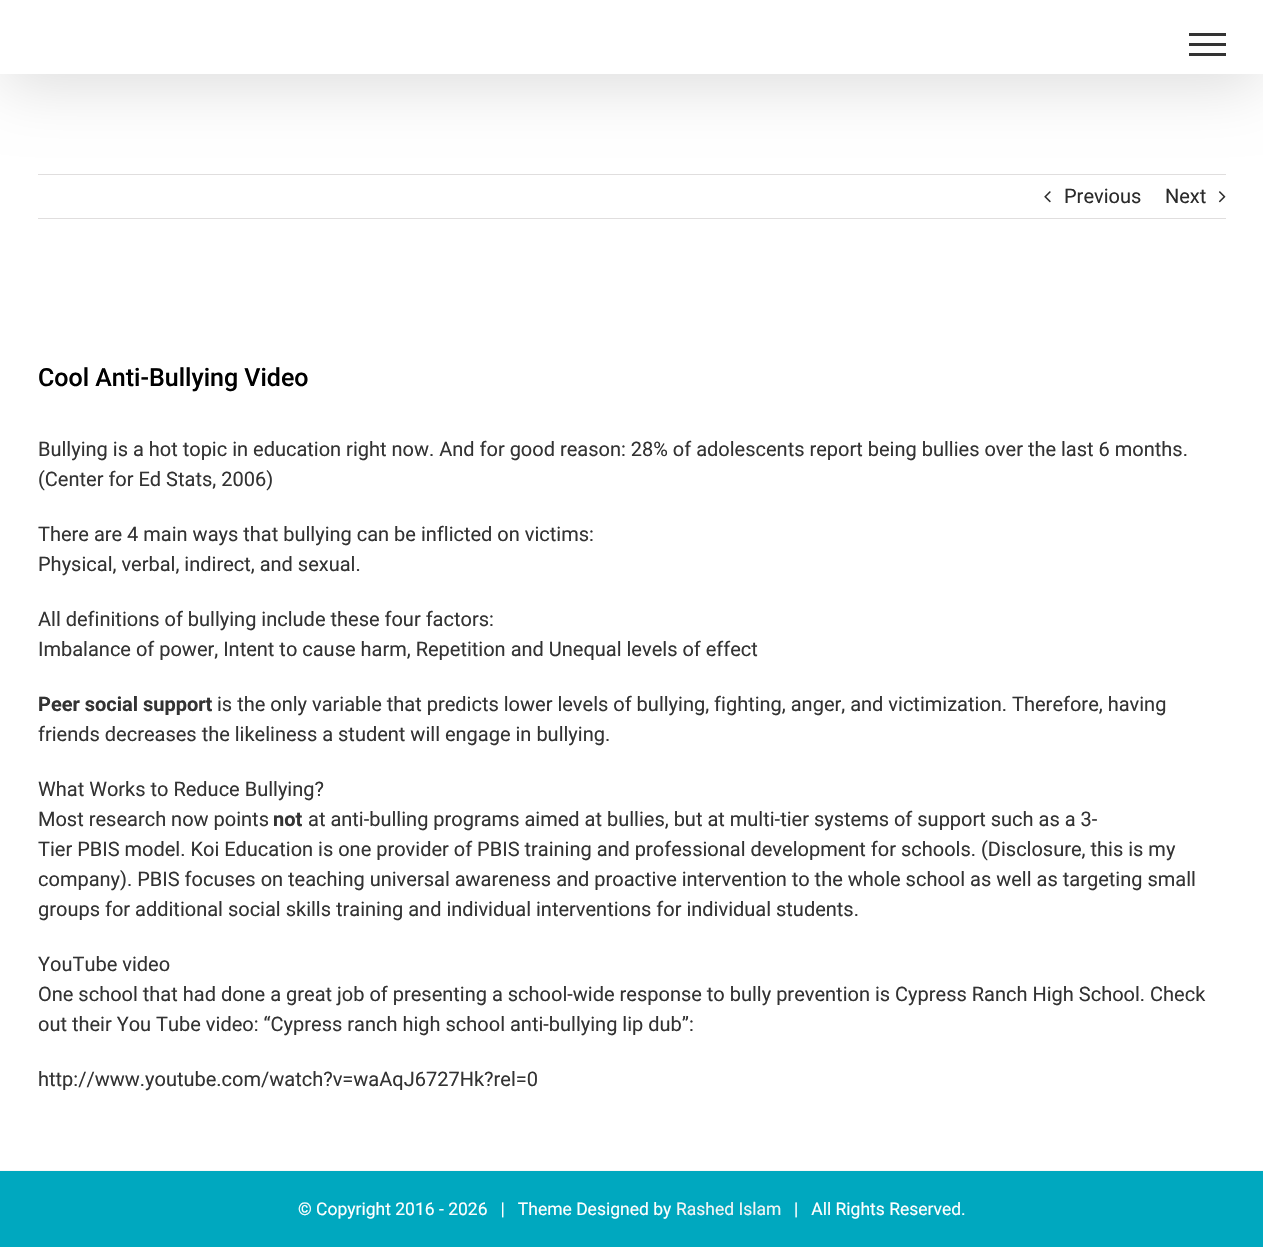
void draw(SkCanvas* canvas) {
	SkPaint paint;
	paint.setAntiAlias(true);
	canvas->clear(0xffffffff);
	paint.setColor(0xffe0dede);
	canvas->drawRect(SkRect::MakeXYWH(38, 174, 1188, 1), paint);
	paint.setColor(0x24000000);
	paint.setMaskFilter(SkMaskFilter::MakeBlur(kNormal_SkBlurStyle, 31));
	canvas->drawRect(SkRect::MakeXYWH(3, 14, 1258, 70), paint);
	paint.setMaskFilter(nullptr);
	paint.setColor(0xffffffff);
	canvas->drawRect(SkRect::MakeXYWH(0, 0, 1263, 74), paint);
	paint.setColor(0xff333333);
	canvas->drawRect(SkRect::MakeXYWH(1189, 33, 37, 3), paint);
	canvas->drawRect(SkRect::MakeXYWH(1189, 43, 37, 3), paint);
	canvas->drawRect(SkRect::MakeXYWH(1189, 53, 37, 3), paint);
	paint.setColor(0xffe0dede);
	canvas->drawRect(SkRect::MakeXYWH(38, 218, 1188, 1), paint);
	canvas->drawImageRect(SkImages::DeferredFromEncodedData(SkData::MakeFromFileName("img1.png")), SkRect::MakeXYWH(1044, 191, 7, 12), SkSamplingOptions());
	SkFont f1(fontMgr->matchFamilyStyle("Roboto", SkFontStyle::Normal()), 20);
	f1.setSubpixel(true);
	paint.setColor(0xff2b2b2b);
	canvas->drawString("Previous", 1064, 203, f1, paint);
	canvas->drawString("Next", 1165, 203, f1, paint);
	canvas->drawImageRect(SkImages::DeferredFromEncodedData(SkData::MakeFromFileName("img2.png")), SkRect::MakeXYWH(1218, 191, 8, 12), SkSamplingOptions());
	SkFont f2(fontMgr->matchFamilyStyle("Roboto", SkFontStyle(500, SkFontStyle::kNormal_Width, SkFontStyle::kUpright_Slant)), 25);
	f2.setSubpixel(true);
	paint.setColor(0xff000000);
	canvas->drawString("Cool Anti-Bullying Video", 38, 386, f2, paint);
	paint.setColor(0xff333333);
	canvas->drawString("Bullying is a hot topic in education right now. And for good reason: 28% of adolescents report being bullies over the last 6 months.", 38, 456, f1, paint);
	canvas->drawString("(Center for Ed Stats, 2006)", 38, 486, f1, paint);
	canvas->drawString("There are 4 main ways that bullying can be inflicted on victims:", 38, 541, f1, paint);
	canvas->drawString("Physical, verbal, indirect, and sexual.", 38, 571, f1, paint);
	canvas->drawString("All definitions of bullying include these four factors:", 38, 626, f1, paint);
	canvas->drawString("Imbalance of power, Intent to cause harm, Repetition and Unequal levels of effect", 38, 656, f1, paint);
	SkFont f3(fontMgr->matchFamilyStyle("Roboto", SkFontStyle::Bold()), 20);
	f3.setSubpixel(true);
	canvas->drawString("Peer social support", 38, 711, f3, paint);
	canvas->drawString("is the only variable that predicts lower levels of bullying, fighting, anger, and victimization. Therefore, having", 217, 711, f1, paint);
	canvas->drawString("friends decreases the likeliness a student will engage in bullying.", 38, 741, f1, paint);
	canvas->drawString("What Works to Reduce Bullying?", 38, 796, f1, paint);
	canvas->drawString("Most research now points", 38, 826, f1, paint);
	canvas->drawString("not", 273, 826, f3, paint);
	canvas->drawString("at anti-bulling programs aimed at bullies, but at multi-tier systems of support such as a 3-", 308, 826, f1, paint);
	canvas->drawString("Tier PBIS model. Koi Education is one provider of PBIS training and professional development for schools. (Disclosure, this is my", 38, 856, f1, paint);
	canvas->drawString("company). PBIS focuses on teaching universal awareness and proactive intervention to the whole school as well as targeting small", 38, 886, f1, paint);
	canvas->drawString("groups for additional social skills training and individual interventions for individual students.", 38, 916, f1, paint);
	canvas->drawString("YouTube video", 38, 971, f1, paint);
	canvas->drawString("One school that had done a great job of presenting a school-wide response to bully prevention is Cypress Ranch High School. Check", 38, 1001, f1, paint);
	canvas->drawString("out their You Tube video: “Cypress ranch high school anti-bullying lip dub”:", 38, 1031, f1, paint);
	canvas->drawString("http://www.youtube.com/watch?v=waAqJ6727Hk?rel=0", 38, 1086, f1, paint);
	paint.setColor(0xff00a8bf);
	canvas->drawRect(SkRect::MakeXYWH(0, 1171, 1263, 76), paint);
	paint.setColor(0xfff7f7f7);
	canvas->drawRect(SkRect::MakeXYWH(0, 1170, 1263, 1), paint);
	SkFont f4(fontMgr->matchFamilyStyle("Roboto", SkFontStyle::Normal()), 17.5);
	f4.setSubpixel(true);
	paint.setColor(0xffffffff);
	canvas->drawString("© Copyright 2016 - 2026   |   Theme Designed by", 298, 1215, f4, paint);
	paint.setColor(0xfff5f5f5);
	canvas->drawString("Rashed Islam", 676, 1215, f4, paint);
	paint.setColor(0xffffffff);
	canvas->drawString("|   All Rights Reserved.", 794, 1215, f4, paint);
}
